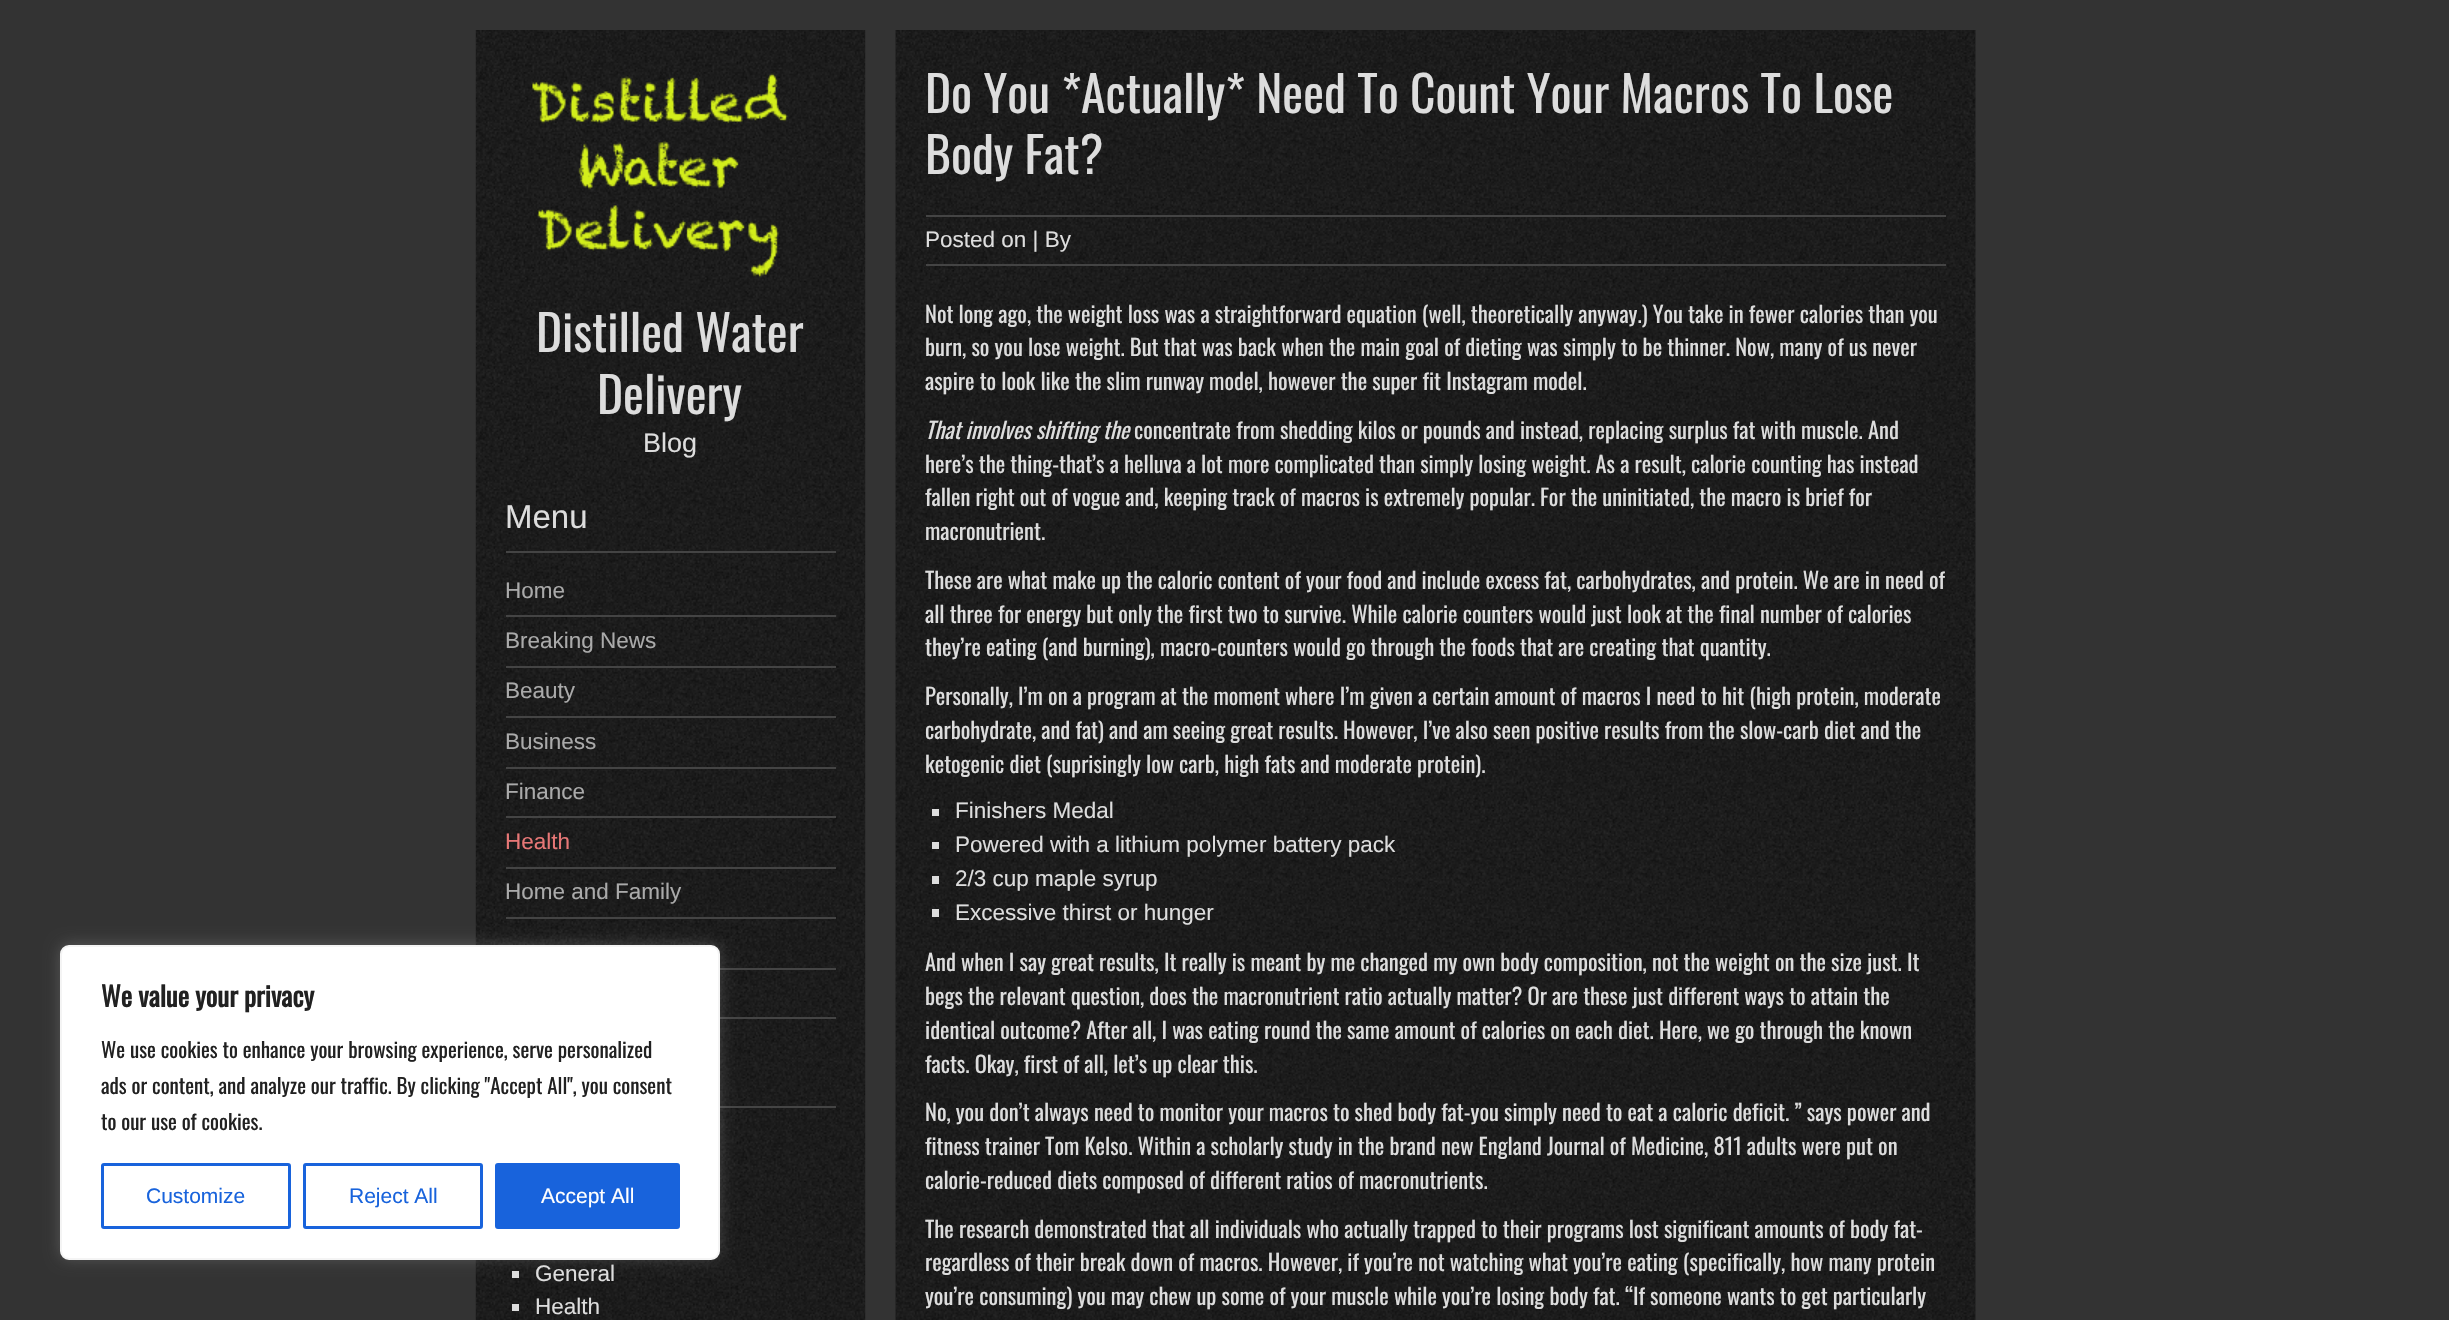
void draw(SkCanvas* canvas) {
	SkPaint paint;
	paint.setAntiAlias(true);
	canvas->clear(0xff333333);
	canvas->drawImageRect(SkImages::DeferredFromEncodedData(SkData::MakeFromFileName("img1.png")), SkRect::MakeXYWH(475, 30, 391, 1290), SkSamplingOptions());
	paint.setColor(0xff444444);
	canvas->drawRect(SkRect::MakeXYWH(720, 968, 116, 2), paint);
	canvas->drawRect(SkRect::MakeXYWH(720, 1017, 116, 2), paint);
	canvas->drawRect(SkRect::MakeXYWH(720, 1106, 116, 2), paint);
	paint.setColor(0xffdddddd);
	canvas->drawRect(SkRect::MakeXYWH(512, 1271, 7, 7), paint);
	paint.setColor(0x4dacabab);
	paint.setMaskFilter(SkMaskFilter::MakeBlur(kNormal_SkBlurStyle, 7.5));
	canvas->drawRoundRect(SkRect::MakeXYWH(60, 944, 660, 315), 9, 9, paint);
	paint.setMaskFilter(nullptr);
	paint.setColor(0xffffffff);
	canvas->drawRoundRect(SkRect::MakeXYWH(61, 946, 658, 313), 8, 8, paint);
	paint.setStroke(true);
	paint.setStrokeWidth(2);
	paint.setColor(0xfff4f4f4);
	canvas->drawRoundRect(SkRect::MakeXYWH(61, 946, 658, 313), 8, 8, paint);
	SkFont f1(fontMgr->matchFamilyStyle("Oswald", SkFontStyle::Bold()), 27);
	f1.setSubpixel(true);
	paint.setStroke(false);
	paint.setColor(0xff212121);
	canvas->drawString("We value your privacy", 101, 1007, f1, paint);
	SkFont f2(fontMgr->matchFamilyStyle("Oswald", SkFontStyle::Normal()), 21);
	f2.setSubpixel(true);
	canvas->drawString("We use cookies to enhance your browsing experience, serve personalized", 101, 1058, f2, paint);
	canvas->drawString("ads or content, and analyze our traffic. By clicking \"Accept All\", you consent", 101, 1094, f2, paint);
	canvas->drawString("to our use of cookies.", 101, 1130, f2, paint);
	paint.setStroke(true);
	paint.setStrokeWidth(3);
	paint.setColor(0xff1863dc);
	canvas->drawRoundRect(SkRect::MakeXYWH(102.5, 1164.5, 187, 63), 1.5, 1.5, paint);
	SkFont f3(fontMgr->matchFamilyStyle("Liberation Sans", SkFontStyle::Normal()), 21);
	f3.setSubpixel(true);
	paint.setStroke(false);
	canvas->drawString("Customize", 146, 1203, f3, paint);
	paint.setStroke(true);
	canvas->drawRoundRect(SkRect::MakeXYWH(304.5, 1164.5, 177, 63), 1.5, 1.5, paint);
	paint.setStroke(false);
	canvas->drawString("Reject All", 349, 1203, f3, paint);
	canvas->drawRoundRect(SkRect::MakeXYWH(496.5, 1164.5, 182, 63), 1.5, 1.5, paint);
	paint.setStroke(true);
	canvas->drawRoundRect(SkRect::MakeXYWH(496.5, 1164.5, 182, 63), 1.5, 1.5, paint);
	paint.setStroke(false);
	paint.setColor(0xffffffff);
	canvas->drawString("Accept All", 541, 1203, f3, paint);
	canvas->drawImageRect(SkImages::DeferredFromEncodedData(SkData::MakeFromFileName("img2.png")), SkRect::MakeXYWH(532, 73, 256, 205), SkSamplingOptions());
	SkFont f4(fontMgr->matchFamilyStyle("Oswald", SkFontStyle::Normal()), 49.5);
	f4.setSubpixel(true);
	paint.setColor(0xffdddddd);
	canvas->drawString("Distilled Water", 536, 352, f4, paint);
	canvas->drawString("Delivery", 597, 414, f4, paint);
	SkFont f5(fontMgr->matchFamilyStyle("Liberation Sans", SkFontStyle::Normal()), 27);
	f5.setSubpixel(true);
	canvas->drawString("Blog", 643, 452, f5, paint);
	paint.setColor(0xff444444);
	canvas->drawRect(SkRect::MakeXYWH(506, 551, 330, 2), paint);
	SkFont f6(fontMgr->matchFamilyStyle("Liberation Sans", SkFontStyle::Normal()), 33);
	f6.setSubpixel(true);
	paint.setColor(0xffdddddd);
	canvas->drawString("Menu", 505, 528, f6, paint);
	paint.setColor(0xff444444);
	canvas->drawRect(SkRect::MakeXYWH(506, 615, 330, 2), paint);
	SkFont f7(fontMgr->matchFamilyStyle("Liberation Sans", SkFontStyle::Normal()), 22.5);
	f7.setSubpixel(true);
	paint.setColor(0xffaaaaaa);
	canvas->drawString("Home", 505, 598, f7, paint);
	paint.setColor(0xff444444);
	canvas->drawRect(SkRect::MakeXYWH(506, 666, 330, 2), paint);
	paint.setColor(0xffaaaaaa);
	canvas->drawString("Breaking News", 505, 648, f7, paint);
	paint.setColor(0xff444444);
	canvas->drawRect(SkRect::MakeXYWH(506, 716, 330, 2), paint);
	paint.setColor(0xffaaaaaa);
	canvas->drawString("Beauty", 505, 698, f7, paint);
	paint.setColor(0xff444444);
	canvas->drawRect(SkRect::MakeXYWH(506, 767, 330, 2), paint);
	paint.setColor(0xffaaaaaa);
	canvas->drawString("Business", 505, 749, f7, paint);
	paint.setColor(0xff444444);
	canvas->drawRect(SkRect::MakeXYWH(506, 816, 330, 2), paint);
	paint.setColor(0xffaaaaaa);
	canvas->drawString("Finance", 505, 799, f7, paint);
	paint.setColor(0xff444444);
	canvas->drawRect(SkRect::MakeXYWH(506, 867, 330, 2), paint);
	paint.setColor(0xffe77776);
	canvas->drawString("Health", 505, 849, f7, paint);
	paint.setColor(0xff444444);
	canvas->drawRect(SkRect::MakeXYWH(506, 917, 330, 2), paint);
	paint.setColor(0xffaaaaaa);
	canvas->drawString("Home and Family", 505, 899, f7, paint);
	paint.setColor(0xffdddddd);
	canvas->drawString("General", 535, 1281, f7, paint);
	canvas->drawRect(SkRect::MakeXYWH(512, 1304, 7, 7), paint);
	canvas->drawString("Health", 535, 1314, f7, paint);
	canvas->drawImageRect(SkImages::DeferredFromEncodedData(SkData::MakeFromFileName("img3.png")), SkRect::MakeXYWH(895, 30, 1081, 1290), SkSamplingOptions());
	canvas->drawString("Do You *Actually* Need To Count Your Macros To Lose", 925, 113, f4, paint);
	canvas->drawString("Body Fat?", 925, 174, f4, paint);
	paint.setColor(0xff444444);
	canvas->drawRect(SkRect::MakeXYWH(926, 215, 1020, 2), paint);
	canvas->drawRect(SkRect::MakeXYWH(926, 264, 1020, 2), paint);
	paint.setColor(0xffdddddd);
	canvas->drawString("Posted on | By", 925, 247, f7, paint);
	SkFont f8(fontMgr->matchFamilyStyle("Oswald", SkFontStyle::Normal()), 22.5);
	f8.setSubpixel(true);
	canvas->drawString("Not long ago, the weight loss was a straightforward equation (well, theoretically anyway.) You take in fewer calories than you", 925, 323, f8, paint);
	canvas->drawString("burn, so you lose weight. But that was back when the main goal of dieting was simply to be thinner. Now, many of us never", 925, 356, f8, paint);
	canvas->drawString("aspire to look like the slim runway model, however the super fit Instagram model.", 925, 390, f8, paint);
	SkFont f9(fontMgr->matchFamilyStyle("Oswald", SkFontStyle::Italic()), 22.5);
	f9.setSubpixel(true);
	canvas->drawString("That involves shifting the", 925, 439, f9, paint);
	canvas->drawString("concentrate from shedding kilos or pounds and instead, replacing surplus fat with muscle. And", 1134, 439, f8, paint);
	canvas->drawString("here’s the thing-that’s a helluva a lot more complicated than simply losing weight. As a result, calorie counting has instead", 925, 473, f8, paint);
	canvas->drawString("fallen right out of vogue and, keeping track of macros is extremely popular. For the uninitiated, the macro is brief for", 925, 506, f8, paint);
	canvas->drawString("macronutrient.", 925, 540, f8, paint);
	canvas->drawString("These are what make up the caloric content of your food and include excess fat, carbohydrates, and protein. We are in need of", 925, 589, f8, paint);
	canvas->drawString("all three for energy but only the first two to survive. While calorie counters would just look at the final number of calories", 925, 623, f8, paint);
	canvas->drawString("they’re eating (and burning), macro-counters would go through the foods that are creating that quantity.", 925, 656, f8, paint);
	canvas->drawString("Personally, I’m on a program at the moment where I’m given a certain amount of macros I need to hit (high protein, moderate", 925, 705, f8, paint);
	canvas->drawString("carbohydrate, and fat) and am seeing great results. However, I’ve also seen positive results from the slow-carb diet and the", 925, 739, f8, paint);
	canvas->drawString("ketogenic diet (suprisingly low carb, high fats and moderate protein).", 925, 773, f8, paint);
	canvas->drawRect(SkRect::MakeXYWH(932, 809, 7, 7), paint);
	canvas->drawString("Finishers Medal", 955, 818, f7, paint);
	canvas->drawRect(SkRect::MakeXYWH(932, 842, 7, 7), paint);
	canvas->drawString("Powered with a lithium polymer battery pack", 955, 852, f7, paint);
	canvas->drawRect(SkRect::MakeXYWH(932, 876, 7, 8), paint);
	canvas->drawString("2/3 cup maple syrup", 955, 886, f7, paint);
	canvas->drawRect(SkRect::MakeXYWH(932, 909, 7, 8), paint);
	canvas->drawString("Excessive thirst or hunger", 955, 920, f7, paint);
	canvas->drawString("And when I say great results, It really is meant by me changed my own body composition, not the weight on the size just. It", 925, 971, f8, paint);
	canvas->drawString("begs the relevant question, does the macronutrient ratio actually matter? Or are these just different ways to attain the", 925, 1005, f8, paint);
	canvas->drawString("identical outcome? After all, I was eating round the same amount of calories on each diet. Here, we go through the known", 925, 1039, f8, paint);
	canvas->drawString("facts. Okay, first of all, let’s up clear this.", 925, 1073, f8, paint);
	canvas->drawString("No, you don’t always need to monitor your macros to shed body fat-you simply need to eat a caloric deficit. ” says power and", 925, 1121, f8, paint);
	canvas->drawString("fitness trainer Tom Kelso. Within a scholarly study in the brand new England Journal of Medicine, 811 adults were put on", 925, 1155, f8, paint);
	canvas->drawString("calorie-reduced diets composed of different ratios of macronutrients.", 925, 1189, f8, paint);
	canvas->drawString("The research demonstrated that all individuals who actually trapped to their programs lost significant amounts of body fat-", 925, 1238, f8, paint);
	canvas->drawString("regardless of their break down of macros. However, if you’re not watching what you’re eating (specifically, how many protein", 925, 1271, f8, paint);
	canvas->drawString("you’re consuming) you may chew up some of your muscle while you’re losing body fat. “If someone wants to get particularly", 925, 1305, f8, paint);
}
